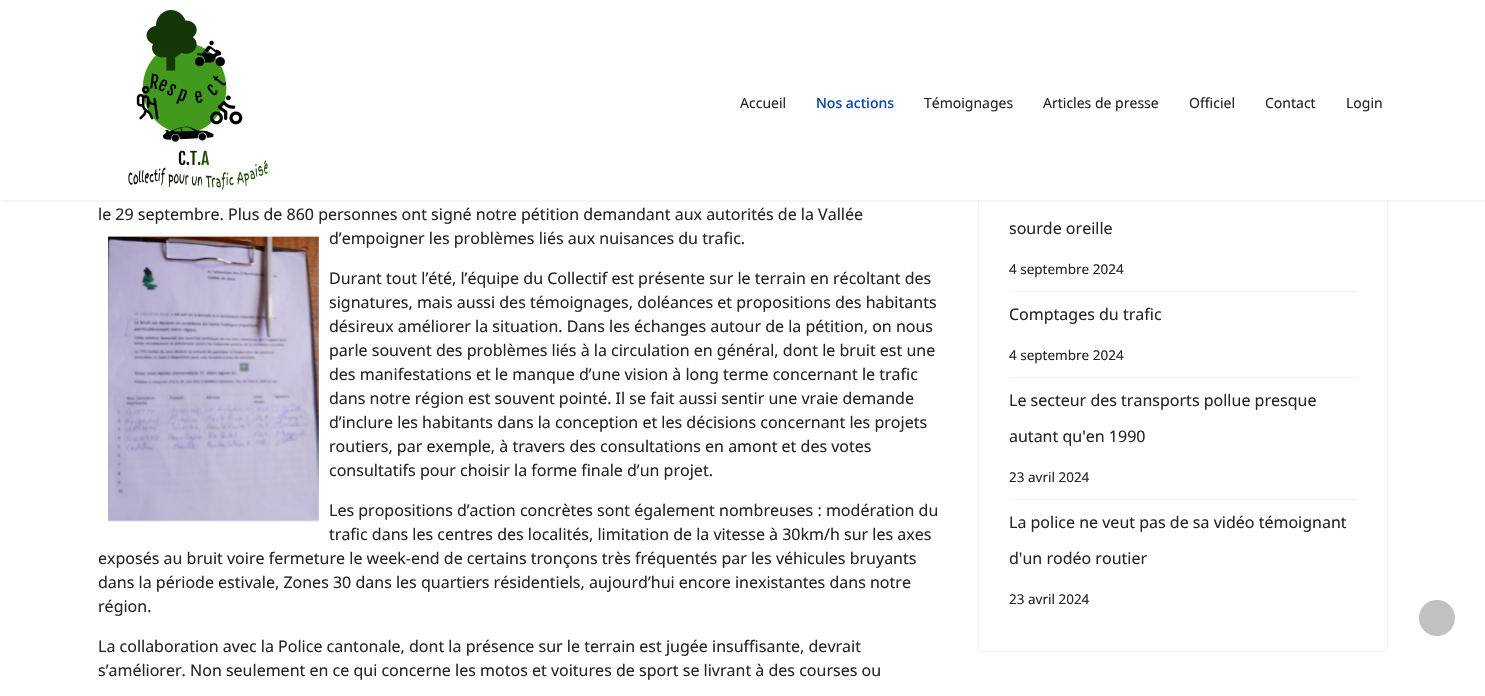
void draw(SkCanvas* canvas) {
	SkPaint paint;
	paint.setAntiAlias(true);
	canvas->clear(0xffffffff);
	paint.setStroke(true);
	paint.setStrokeWidth(1);
	paint.setColor(0xfff3f3f3);
	canvas->drawRoundRect(SkRect::MakeXYWH(978.5, -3.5, 409, 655), 2.5, 2.5, paint);
	paint.setStroke(false);
	paint.setColor(0x1a000000);
	paint.setMaskFilter(SkMaskFilter::MakeBlur(kNormal_SkBlurStyle, 2));
	canvas->drawRect(SkRect::MakeXYWH(0, 0, 1485, 200), paint);
	paint.setMaskFilter(nullptr);
	paint.setColor(0xffffffff);
	canvas->drawRect(SkRect::MakeXYWH(0, 0, 1485, 200), paint);
	canvas->drawImageRect(SkImages::DeferredFromEncodedData(SkData::MakeFromFileName("img1.png")), SkRect::MakeXYWH(128, 10, 140, 180), SkSamplingOptions());
	SkFont f1(fontMgr->matchFamilyStyle("Noto Sans", SkFontStyle::Normal()), 14);
	f1.setSubpixel(true);
	paint.setColor(0xff252525);
	canvas->drawString("Accueil", 740, 108, f1, paint);
	SkFont f2(fontMgr->matchFamilyStyle("Noto Sans", SkFontStyle(500, SkFontStyle::kNormal_Width, SkFontStyle::kUpright_Slant)), 14);
	f2.setSubpixel(true);
	paint.setColor(0xff0345bf);
	canvas->drawString("Nos actions", 816, 108, f2, paint);
	paint.setColor(0xff252525);
	canvas->drawString("Témoignages", 924, 108, f1, paint);
	canvas->drawString("Articles de presse", 1043, 108, f1, paint);
	canvas->drawString("Officiel", 1189, 108, f1, paint);
	canvas->drawString("Contact", 1265, 108, f1, paint);
	canvas->drawString("Login", 1346, 108, f1, paint);
	SkFont f3(fontMgr->matchFamilyStyle("Noto Sans", SkFontStyle::Normal()), 16);
	f3.setSubpixel(true);
	canvas->drawString("le 29 septembre. Plus de 860 personnes ont signé notre pétition demandant aux autorités de la Vallée", 98, 220, f3, paint);
	canvas->drawImageRect(SkImages::DeferredFromEncodedData(SkData::MakeFromFileName("img2.png")), SkRect::MakeXYWH(108, 236, 211, 286), SkSamplingOptions());
	canvas->drawString("d’empoigner les problèmes liés aux nuisances du trafic.", 329, 244, f3, paint);
	canvas->drawString("Durant tout l’été, l’équipe du Collectif est présente sur le terrain en récoltant des", 329, 284, f3, paint);
	canvas->drawString("signatures, mais aussi des témoignages, doléances et propositions des habitants", 329, 308, f3, paint);
	canvas->drawString("désireux améliorer la situation. Dans les échanges autour de la pétition, on nous", 329, 332, f3, paint);
	canvas->drawString("parle souvent des problèmes liés à la circulation en général, dont le bruit est une", 329, 356, f3, paint);
	canvas->drawString("des manifestations et le manque d’une vision à long terme concernant le trafic", 329, 380, f3, paint);
	canvas->drawString("dans notre région est souvent pointé. Il se fait aussi sentir une vraie demande", 329, 404, f3, paint);
	canvas->drawString("d’inclure les habitants dans la conception et les décisions concernant les projets", 329, 428, f3, paint);
	canvas->drawString("routiers, par exemple, à travers des consultations en amont et des votes", 329, 452, f3, paint);
	canvas->drawString("consultatifs pour choisir la forme finale d’un projet.", 329, 476, f3, paint);
	canvas->drawString("Les propositions d’action concrètes sont également nombreuses : modération du", 329, 516, f3, paint);
	canvas->drawString("trafic dans les centres des localités, limitation de la vitesse à 30km/h sur les axes", 329, 540, f3, paint);
	canvas->drawString("exposés au bruit voire fermeture le week-end de certains tronçons très fréquentés par les véhicules bruyants", 98, 564, f3, paint);
	canvas->drawString("dans la période estivale, Zones 30 dans les quartiers résidentiels, aujourd’hui encore inexistantes dans notre", 98, 588, f3, paint);
	canvas->drawString("région.", 98, 612, f3, paint);
	canvas->drawString("La collaboration avec la Police cantonale, dont la présence sur le terrain est jugée insuffisante, devrait", 98, 652, f3, paint);
	canvas->drawString("s’améliorer. Non seulement en ce qui concerne les motos et voitures de sport se livrant à des courses ou", 98, 676, f3, paint);
	paint.setColor(0xfff3f3f3);
	canvas->drawRect(SkRect::MakeXYWH(1009, 291, 348, 1), paint);
	paint.setColor(0xff252525);
	canvas->drawString("sourde oreille", 1009, 234, f3, paint);
	SkFont f4(fontMgr->matchFamilyStyle("Noto Sans", SkFontStyle::Normal()), 13.5);
	f4.setSubpixel(true);
	canvas->drawString("4 septembre 2024", 1009, 274, f4, paint);
	paint.setColor(0xfff3f3f3);
	canvas->drawRect(SkRect::MakeXYWH(1009, 377, 348, 1), paint);
	paint.setColor(0xff252525);
	canvas->drawString("Comptages du trafic", 1009, 320, f3, paint);
	canvas->drawString("4 septembre 2024", 1009, 360, f4, paint);
	paint.setColor(0xfff3f3f3);
	canvas->drawRect(SkRect::MakeXYWH(1009, 499, 348, 1), paint);
	paint.setColor(0xff252525);
	canvas->drawString("Le secteur des transports pollue presque", 1009, 406, f3, paint);
	canvas->drawString("autant qu'en 1990", 1009, 442, f3, paint);
	canvas->drawString("23 avril 2024", 1009, 482, f4, paint);
	canvas->drawString("La police ne veut pas de sa vidéo témoignant", 1009, 528, f3, paint);
	canvas->drawString("d'un rodéo routier", 1009, 564, f3, paint);
	canvas->drawString("23 avril 2024", 1009, 604, f4, paint);
	paint.setColor(0xffc1c1c1);
	canvas->drawCircle(1437, 618, 18, paint);
}
